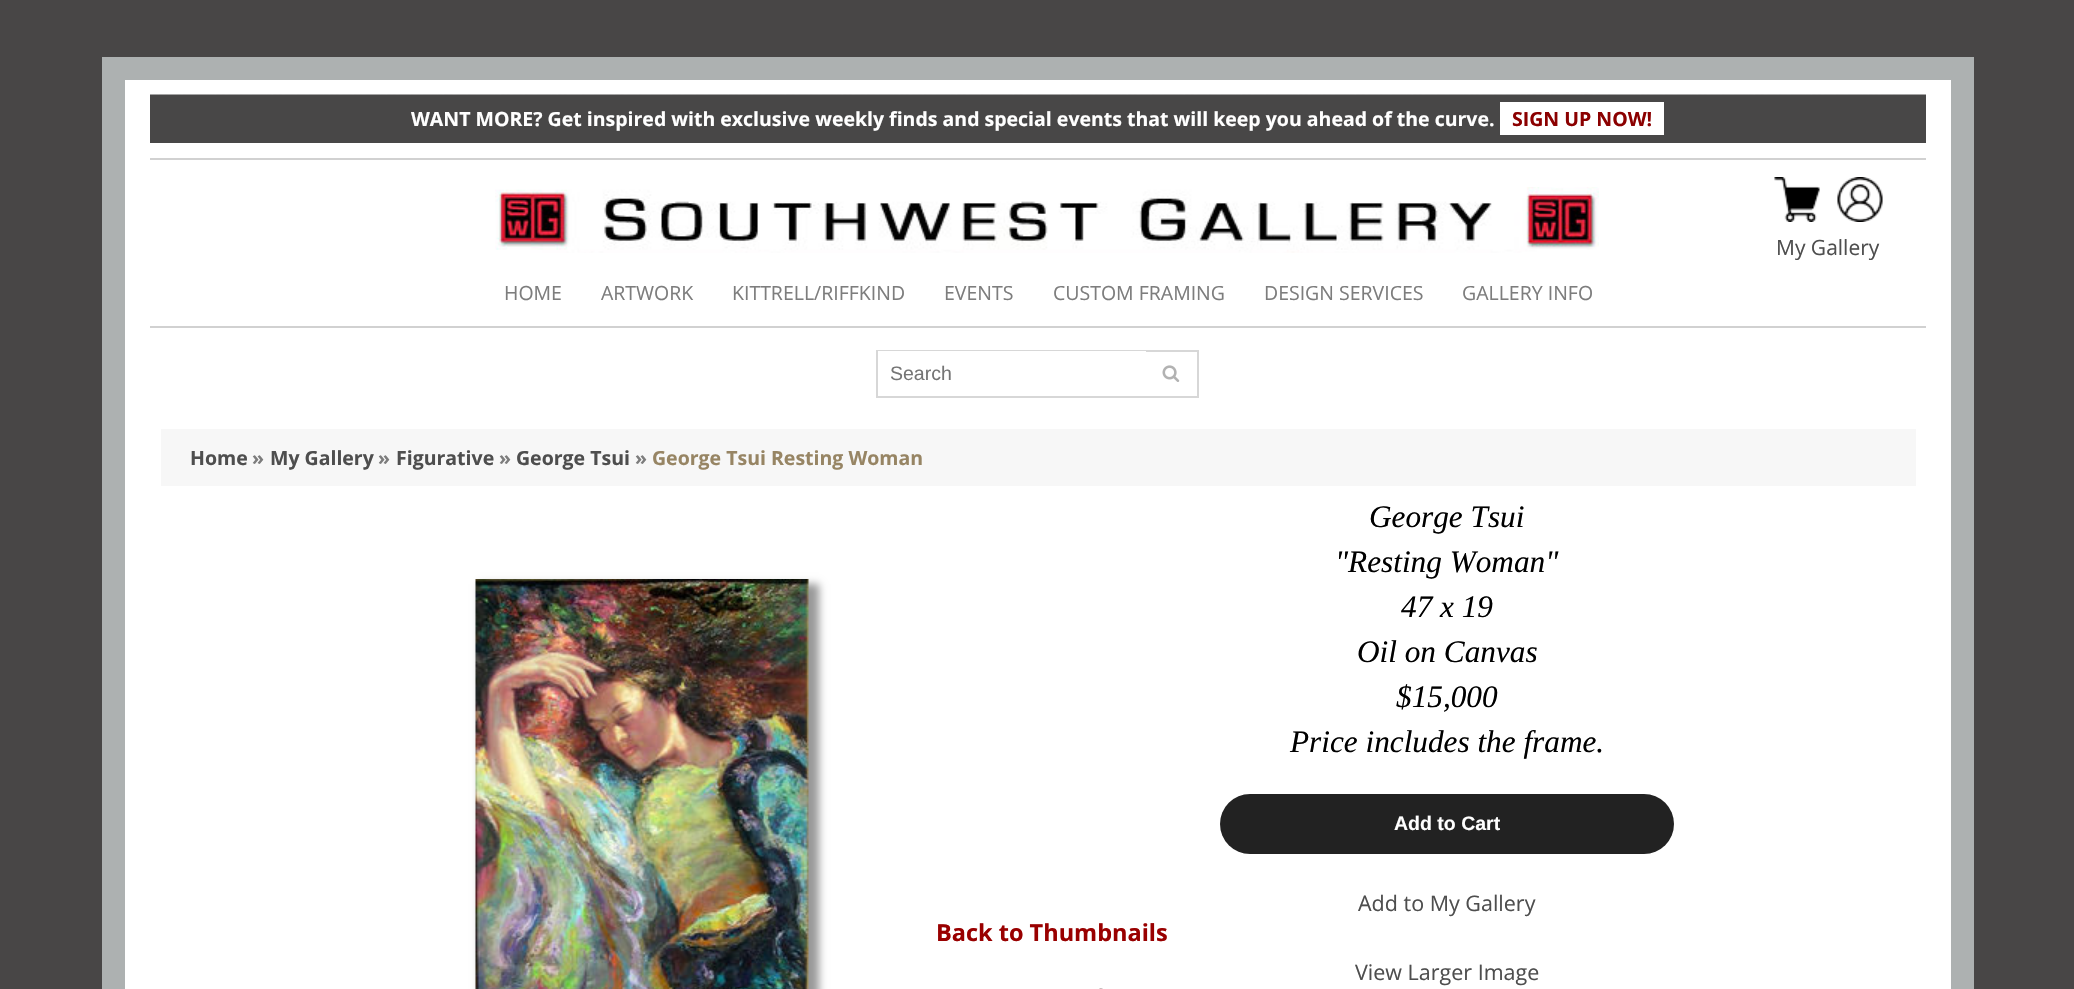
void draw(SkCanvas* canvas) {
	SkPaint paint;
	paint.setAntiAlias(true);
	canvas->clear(0xff484646);
	paint.setColor(0xffffffff);
	canvas->drawRect(SkRect::MakeXYWH(113.5, 68.5, 1849, 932), paint);
	paint.setStroke(true);
	paint.setStrokeWidth(23);
	paint.setColor(0xffadb1b1);
	canvas->drawRect(SkRect::MakeXYWH(113.5, 68.5, 1849, 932), paint);
	paint.setStroke(false);
	paint.setColor(0xff484747);
	canvas->drawRect(SkRect::MakeXYWH(150, 95, 1776, 48), paint);
	canvas->drawImageRect(SkImages::DeferredFromEncodedData(SkData::MakeFromFileName("img1.png")), SkRect::MakeXYWH(150, 94, 1776, 1), SkSamplingOptions());
	SkFont f1(fontMgr->matchFamilyStyle("Open Sans", SkFontStyle::Bold()), 19.5);
	f1.setSubpixel(true);
	paint.setColor(0xffffffff);
	canvas->drawString("WANT MORE? Get inspired with exclusive weekly finds and special events that will keep you ahead of the curve.", 411, 126, f1, paint);
	canvas->drawRect(SkRect::MakeXYWH(1500, 102, 164, 33), paint);
	paint.setColor(0xff8b0000);
	canvas->drawString("SIGN UP NOW!", 1512, 126, f1, paint);
	paint.setColor(0xffd1d1d1);
	canvas->drawRect(SkRect::MakeXYWH(150, 158, 1776, 2), paint);
	canvas->drawRect(SkRect::MakeXYWH(150, 326, 1776, 2), paint);
	canvas->drawImageRect(SkImages::DeferredFromEncodedData(SkData::MakeFromFileName("img2.png")), SkRect::MakeXYWH(495, 187, 1104, 66), SkSamplingOptions());
	canvas->drawImageRect(SkImages::DeferredFromEncodedData(SkData::MakeFromFileName("img3.png")), SkRect::MakeXYWH(1774, 177, 46, 45), SkSamplingOptions());
	canvas->drawImageRect(SkImages::DeferredFromEncodedData(SkData::MakeFromFileName("img4.png")), SkRect::MakeXYWH(1837, 177, 46, 45), SkSamplingOptions());
	SkFont f2(fontMgr->matchFamilyStyle("Open Sans", SkFontStyle::Normal()), 21);
	f2.setSubpixel(true);
	paint.setColor(0xff4e4e4e);
	canvas->drawString("My Gallery", 1776, 255, f2, paint);
	SkFont f3(fontMgr->matchFamilyStyle("Open Sans", SkFontStyle::Normal()), 19.5);
	f3.setSubpixel(true);
	paint.setColor(0xff7d7d7d);
	canvas->drawString("HOME", 504, 300, f3, paint);
	canvas->drawString("ARTWORK", 601, 300, f3, paint);
	canvas->drawString("KITTRELL/RIFFKIND", 732, 300, f3, paint);
	canvas->drawString("EVENTS", 944, 300, f3, paint);
	canvas->drawString("CUSTOM FRAMING", 1053, 300, f3, paint);
	canvas->drawString("DESIGN SERVICES", 1264, 300, f3, paint);
	canvas->drawString("GALLERY INFO", 1462, 300, f3, paint);
	paint.setStroke(true);
	paint.setStrokeWidth(2);
	paint.setColor(0xffd7d7d7);
	canvas->drawRect(SkRect::MakeXYWH(877, 351, 321, 46), paint);
	paint.setStroke(false);
	paint.setColor(0xffffffff);
	canvas->drawRect(SkRect::MakeXYWH(878, 351, 268, 1), paint);
	SkFont f4(fontMgr->matchFamilyStyle("Liberation Sans", SkFontStyle::Normal()), 19.5);
	f4.setSubpixel(true);
	paint.setColor(0xff757575);
	canvas->drawString("Search", 890, 380, f4, paint);
	canvas->drawImageRect(SkImages::DeferredFromEncodedData(SkData::MakeFromFileName("img5.png")), SkRect::MakeXYWH(1162, 365, 18, 17), SkSamplingOptions());
	paint.setColor(0xfff7f7f7);
	canvas->drawRect(SkRect::MakeXYWH(161, 429, 1755, 57), paint);
	paint.setColor(0xff4e4e4e);
	canvas->drawString("Home", 190, 465, f1, paint);
	paint.setColor(0xff7d7d7d);
	canvas->drawString("»", 252, 465, f1, paint);
	paint.setColor(0xff4e4e4e);
	canvas->drawString("My Gallery", 270, 465, f1, paint);
	paint.setColor(0xff7d7d7d);
	canvas->drawString("»", 378, 465, f1, paint);
	paint.setColor(0xff4e4e4e);
	canvas->drawString("Figurative", 396, 465, f1, paint);
	paint.setColor(0xff7d7d7d);
	canvas->drawString("»", 499, 465, f1, paint);
	paint.setColor(0xff4e4e4e);
	canvas->drawString("George Tsui", 516, 465, f1, paint);
	paint.setColor(0xff7d7d7d);
	canvas->drawString("»", 635, 465, f1, paint);
	paint.setColor(0xff978564);
	canvas->drawString("George Tsui Resting Woman", 652, 465, f1, paint);
	paint.setColor(0xff999999);
	paint.setMaskFilter(SkMaskFilter::MakeBlur(kNormal_SkBlurStyle, 4));
	canvas->drawRect(SkRect::MakeXYWH(480, 584, 339, 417), paint);
	paint.setMaskFilter(nullptr);
	canvas->drawImageRect(SkImages::DeferredFromEncodedData(SkData::MakeFromFileName("img6.png")), SkRect::MakeXYWH(475, 579, 334, 410), SkSamplingOptions());
	SkFont f5(fontMgr->matchFamilyStyle("Open Sans", SkFontStyle::Bold()), 23.5);
	f5.setSubpixel(true);
	paint.setColor(0xff990000);
	canvas->drawString("Back to Thumbnails", 936, 941, f5, paint);
	canvas->drawImageRect(SkImages::DeferredFromEncodedData(SkData::MakeFromFileName("img7.png")), SkRect::MakeXYWH(1099, 988, 4, 1), SkSamplingOptions());
	SkFont f6(fontMgr->matchFamilyStyle("Liberation Serif", SkFontStyle::Italic()), 31.25);
	f6.setSubpixel(true);
	paint.setColor(0xff000000);
	canvas->drawString("George Tsui", 1369, 527, f6, paint);
	canvas->drawString("\"Resting Woman\"", 1335, 572, f6, paint);
	canvas->drawString("47 x 19", 1401, 617, f6, paint);
	canvas->drawString("Oil on Canvas", 1357, 662, f6, paint);
	canvas->drawString("$15,000", 1396, 707, f6, paint);
	canvas->drawString("Price includes the frame.", 1290, 752, f6, paint);
	paint.setColor(0xff222222);
	canvas->drawRoundRect(SkRect::MakeXYWH(1220, 794, 454, 60), 30, 30, paint);
	SkFont f7(fontMgr->matchFamilyStyle("Liberation Sans", SkFontStyle::Bold()), 19.5);
	f7.setSubpixel(true);
	paint.setColor(0xffffffff);
	canvas->drawString("Add to Cart", 1394, 830, f7, paint);
	SkFont f8(fontMgr->matchFamilyStyle("Open Sans", SkFontStyle::Normal()), 21.5);
	f8.setSubpixel(true);
	paint.setColor(0xff4e4e4e);
	canvas->drawString("Add to My Gallery", 1358, 911, f8, paint);
	canvas->drawString("View Larger Image", 1355, 980, f8, paint);
}
